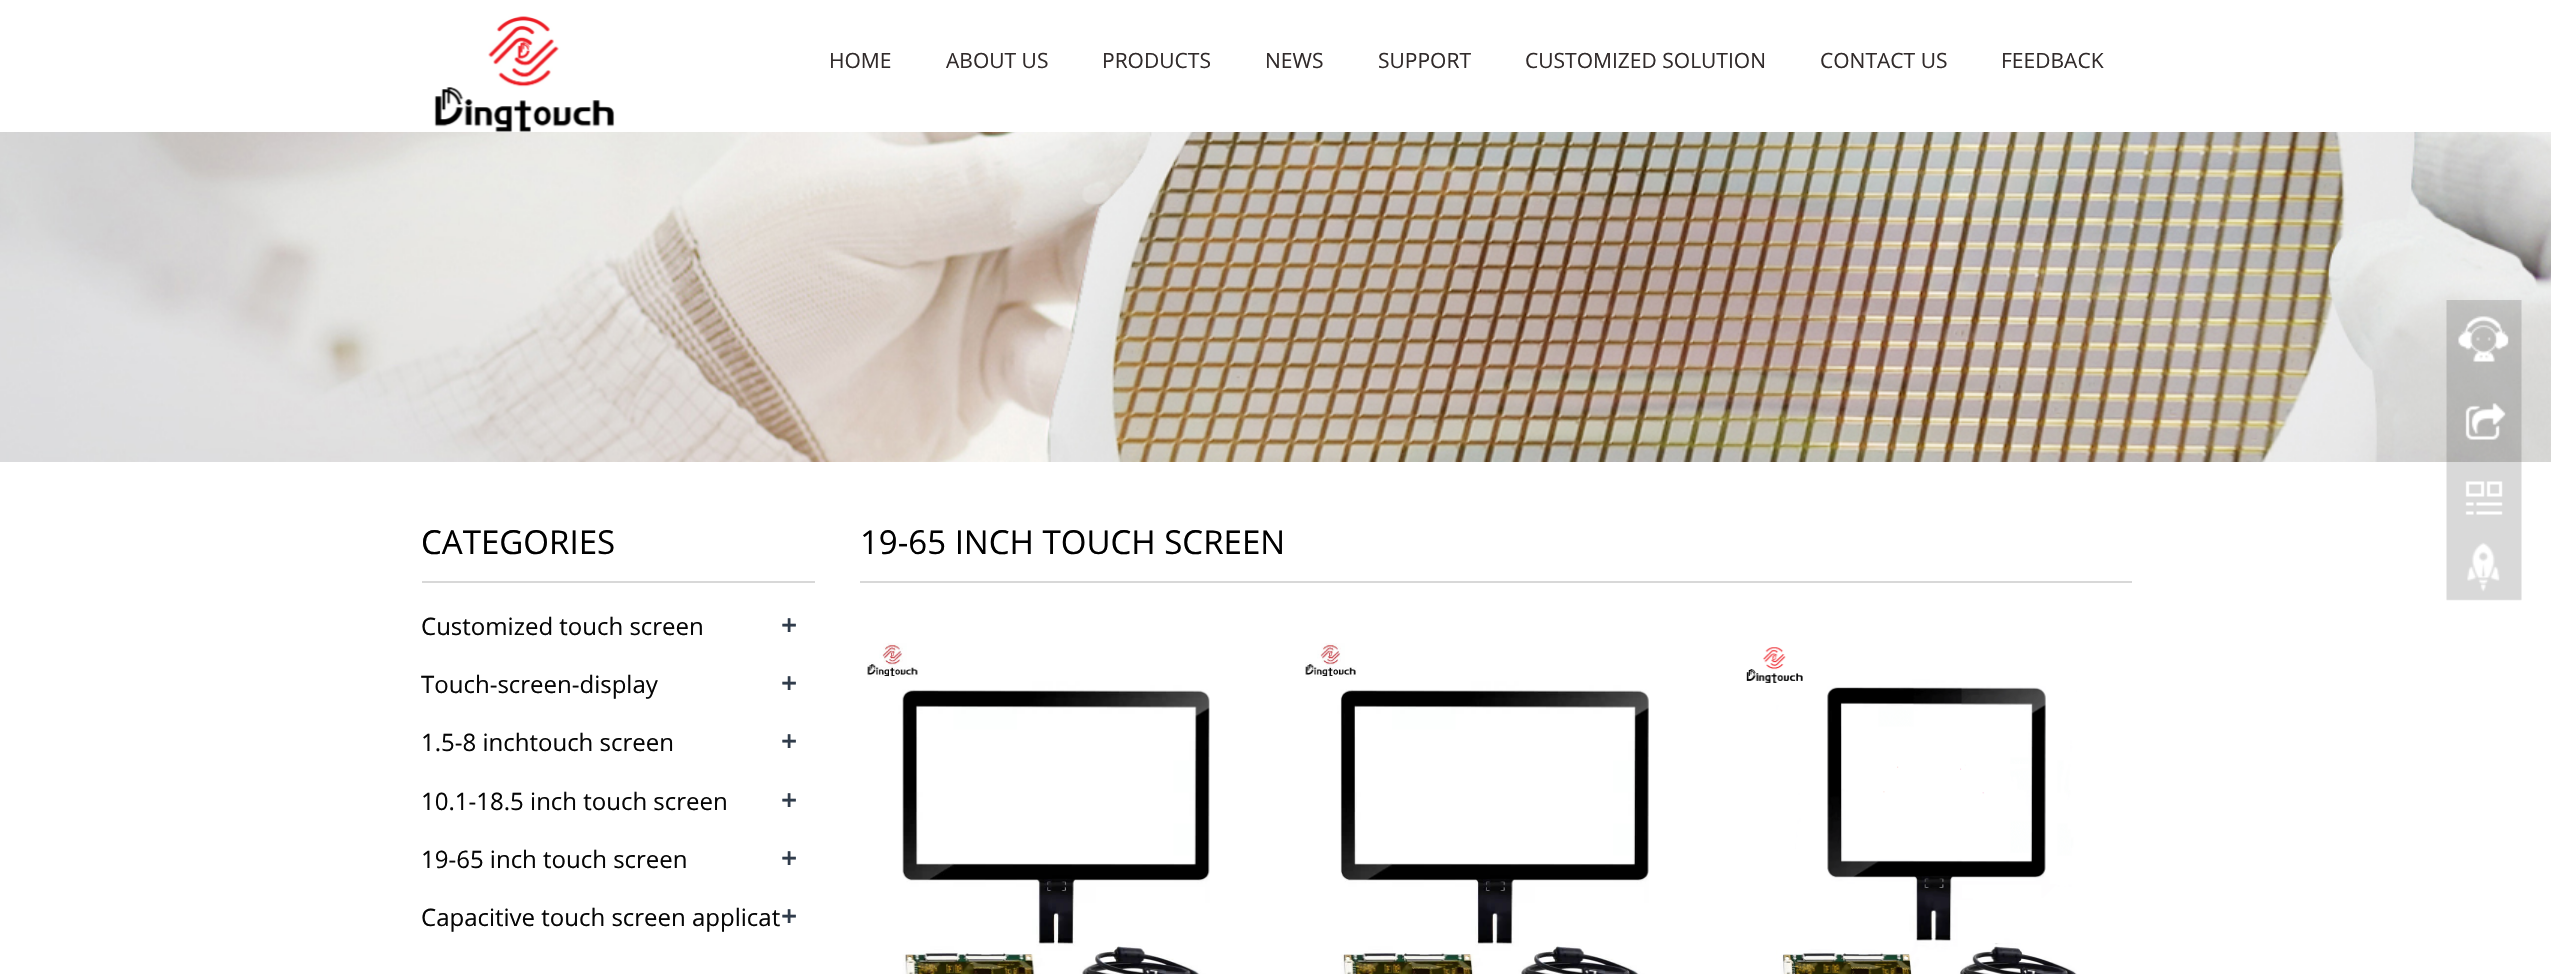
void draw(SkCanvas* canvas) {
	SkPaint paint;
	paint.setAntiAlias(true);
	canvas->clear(0xffffffff);
	canvas->drawImageRect(SkImages::DeferredFromEncodedData(SkData::MakeFromFileName("img1.png")), SkRect::MakeXYWH(434, 16, 181, 116), SkSamplingOptions());
	SkFont f1(fontMgr->matchFamilyStyle("Open Sans", SkFontStyle::Normal()), 21);
	f1.setSubpixel(true);
	paint.setColor(0xff312b2b);
	canvas->drawString("HOME", 829, 68, f1, paint);
	canvas->drawString("ABOUT US", 946, 68, f1, paint);
	canvas->drawString("PRODUCTS", 1102, 68, f1, paint);
	canvas->drawString("NEWS", 1265, 68, f1, paint);
	canvas->drawString("SUPPORT", 1378, 68, f1, paint);
	canvas->drawString("CUSTOMIZED SOLUTION", 1525, 68, f1, paint);
	canvas->drawString("CONTACT US", 1820, 68, f1, paint);
	canvas->drawString("FEEDBACK", 2001, 68, f1, paint);
	canvas->drawImageRect(SkImages::DeferredFromEncodedData(SkData::MakeFromFileName("img2.png")), SkRect::MakeXYWH(0, 132, 2551, 330), SkSamplingOptions());
	canvas->drawImageRect(SkImages::DeferredFromEncodedData(SkData::MakeFromFileName("img3.png")), SkRect::MakeXYWH(2446, 300, 76, 301), SkSamplingOptions());
	paint.setColor(0xffd8d8d8);
	canvas->drawRect(SkRect::MakeXYWH(422, 581, 393, 2), paint);
	SkFont f2(fontMgr->matchFamilyStyle("Open Sans", SkFontStyle::Normal()), 33);
	f2.setSubpixel(true);
	paint.setColor(0xff000000);
	canvas->drawString("CATEGORIES", 421, 554, f2, paint);
	SkFont f3(fontMgr->matchFamilyStyle("Open Sans", SkFontStyle::Normal()), 24);
	f3.setSubpixel(true);
	paint.setColor(0xff060606);
	canvas->drawString("Customized touch screen", 421, 635, f3, paint);
	SkFont f4(fontMgr->matchFamilyStyle("Open Sans", SkFontStyle::Bold()), 27);
	f4.setSubpixel(true);
	paint.setColor(0xff303c4b);
	canvas->drawString("+", 781, 635, f4, paint);
	paint.setColor(0xff060606);
	canvas->drawString("Touch-screen-display", 421, 693, f3, paint);
	paint.setColor(0xff303c4b);
	canvas->drawString("+", 781, 693, f4, paint);
	paint.setColor(0xff060606);
	canvas->drawString("1.5-8 inchtouch screen", 421, 751, f3, paint);
	paint.setColor(0xff303c4b);
	canvas->drawString("+", 781, 751, f4, paint);
	paint.setColor(0xff060606);
	canvas->drawString("10.1-18.5 inch touch screen", 421, 810, f3, paint);
	paint.setColor(0xff303c4b);
	canvas->drawString("+", 781, 810, f4, paint);
	paint.setColor(0xff060606);
	canvas->drawString("19-65 inch touch screen", 421, 868, f3, paint);
	paint.setColor(0xff303c4b);
	canvas->drawString("+", 781, 868, f4, paint);
	paint.setColor(0xff060606);
	canvas->drawString("Capacitive touch screen applicat", 421, 926, f3, paint);
	paint.setColor(0xff303c4b);
	canvas->drawString("+", 781, 926, f4, paint);
	paint.setColor(0xffd8d8d8);
	canvas->drawRect(SkRect::MakeXYWH(860, 581, 1272, 2), paint);
	paint.setColor(0xff000000);
	canvas->drawString("19-65 INCH TOUCH SCREEN", 860, 554, f2, paint);
	canvas->drawImageRect(SkImages::DeferredFromEncodedData(SkData::MakeFromFileName("img4.png")), SkRect::MakeXYWH(867, 643, 343, 331), SkSamplingOptions());
	canvas->drawImageRect(SkImages::DeferredFromEncodedData(SkData::MakeFromFileName("img5.png")), SkRect::MakeXYWH(1305, 643, 344, 331), SkSamplingOptions());
	canvas->drawImageRect(SkImages::DeferredFromEncodedData(SkData::MakeFromFileName("img6.png")), SkRect::MakeXYWH(1746, 647, 331, 327), SkSamplingOptions());
}
